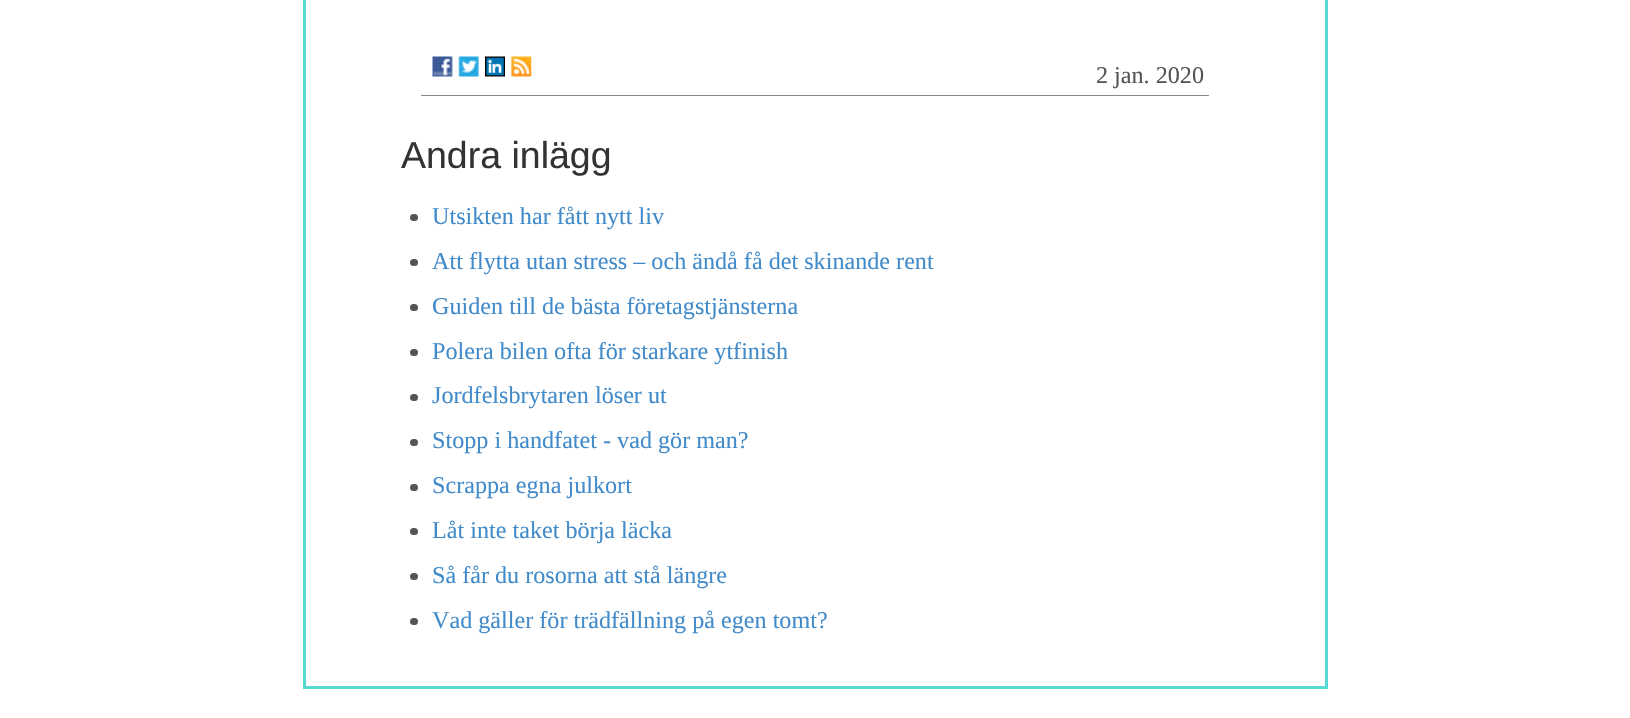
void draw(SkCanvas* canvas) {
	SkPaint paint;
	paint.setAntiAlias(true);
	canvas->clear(0xffffffff);
	paint.setColor(0xff57d8d3);
	canvas->drawRect(SkRect::MakeXYWH(1325, 0, 3, 689), paint);
	canvas->drawRect(SkRect::MakeXYWH(303, 686, 1025, 3), paint);
	canvas->drawRect(SkRect::MakeXYWH(303, 0, 3, 689), paint);
	canvas->drawImageRect(SkImages::DeferredFromEncodedData(SkData::MakeFromFileName("img1.png")), SkRect::MakeXYWH(432, 56, 21, 21), SkSamplingOptions());
	canvas->drawImageRect(SkImages::DeferredFromEncodedData(SkData::MakeFromFileName("img2.png")), SkRect::MakeXYWH(458, 56, 21, 21), SkSamplingOptions());
	canvas->drawImageRect(SkImages::DeferredFromEncodedData(SkData::MakeFromFileName("img3.png")), SkRect::MakeXYWH(485, 56, 20, 21), SkSamplingOptions());
	canvas->drawImageRect(SkImages::DeferredFromEncodedData(SkData::MakeFromFileName("img4.png")), SkRect::MakeXYWH(511, 56, 21, 21), SkSamplingOptions());
	SkFont f1(fontMgr->matchFamilyStyle("Liberation Serif", SkFontStyle::Normal()), 24.15);
	f1.setSubpixel(true);
	paint.setColor(0xff555555);
	canvas->drawString("2 jan. 2020", 1096, 83, f1, paint);
	paint.setColor(0xff888888);
	canvas->drawRect(SkRect::MakeXYWH(421, 95, 788, 1), paint);
	SkFont f2(fontMgr->matchFamilyStyle("Liberation Sans", SkFontStyle::Normal()), 37.5);
	f2.setSubpixel(true);
	paint.setColor(0xff333333);
	canvas->drawString("Andra inlägg", 401, 168, f2, paint);
	paint.setColor(0xff555555);
	canvas->drawRoundRect(SkRect::MakeXYWH(410, 214, 8, 7), 3.5, 3.5, paint);
	paint.setColor(0xff428bca);
	canvas->drawString("Utsikten har fått nytt liv", 432, 224, f1, paint);
	paint.setColor(0xff555555);
	canvas->drawRoundRect(SkRect::MakeXYWH(410, 259, 8, 7), 3.5, 3.5, paint);
	paint.setColor(0xff428bca);
	canvas->drawString("Att flytta utan stress – och ändå få det skinande rent", 432, 269, f1, paint);
	paint.setColor(0xff555555);
	canvas->drawRoundRect(SkRect::MakeXYWH(410, 304, 8, 7), 3.5, 3.5, paint);
	paint.setColor(0xff428bca);
	canvas->drawString("Guiden till de bästa företagstjänsterna", 432, 314, f1, paint);
	paint.setColor(0xff555555);
	canvas->drawRoundRect(SkRect::MakeXYWH(410, 349, 8, 7), 3.5, 3.5, paint);
	paint.setColor(0xff428bca);
	canvas->drawString("Polera bilen ofta för starkare ytfinish", 432, 359, f1, paint);
	paint.setColor(0xff555555);
	canvas->drawRoundRect(SkRect::MakeXYWH(410, 394, 8, 7), 3.5, 3.5, paint);
	paint.setColor(0xff428bca);
	canvas->drawString("Jordfelsbrytaren löser ut", 432, 403, f1, paint);
	paint.setColor(0xff555555);
	canvas->drawRoundRect(SkRect::MakeXYWH(410, 439, 8, 7), 3.5, 3.5, paint);
	paint.setColor(0xff428bca);
	canvas->drawString("Stopp i handfatet - vad gör man?", 432, 448, f1, paint);
	paint.setColor(0xff555555);
	canvas->drawRoundRect(SkRect::MakeXYWH(410, 484, 8, 7), 3.5, 3.5, paint);
	paint.setColor(0xff428bca);
	canvas->drawString("Scrappa egna julkort", 432, 493, f1, paint);
	paint.setColor(0xff555555);
	canvas->drawRoundRect(SkRect::MakeXYWH(410, 528, 8, 7), 3.5, 3.5, paint);
	paint.setColor(0xff428bca);
	canvas->drawString("Låt inte taket börja läcka", 432, 538, f1, paint);
	paint.setColor(0xff555555);
	canvas->drawRoundRect(SkRect::MakeXYWH(410, 573, 8, 7), 3.5, 3.5, paint);
	paint.setColor(0xff428bca);
	canvas->drawString("Så får du rosorna att stå längre", 432, 583, f1, paint);
	paint.setColor(0xff555555);
	canvas->drawRoundRect(SkRect::MakeXYWH(410, 618, 8, 7), 3.5, 3.5, paint);
	paint.setColor(0xff428bca);
	canvas->drawString("Vad gäller för trädfällning på egen tomt?", 432, 628, f1, paint);
}
